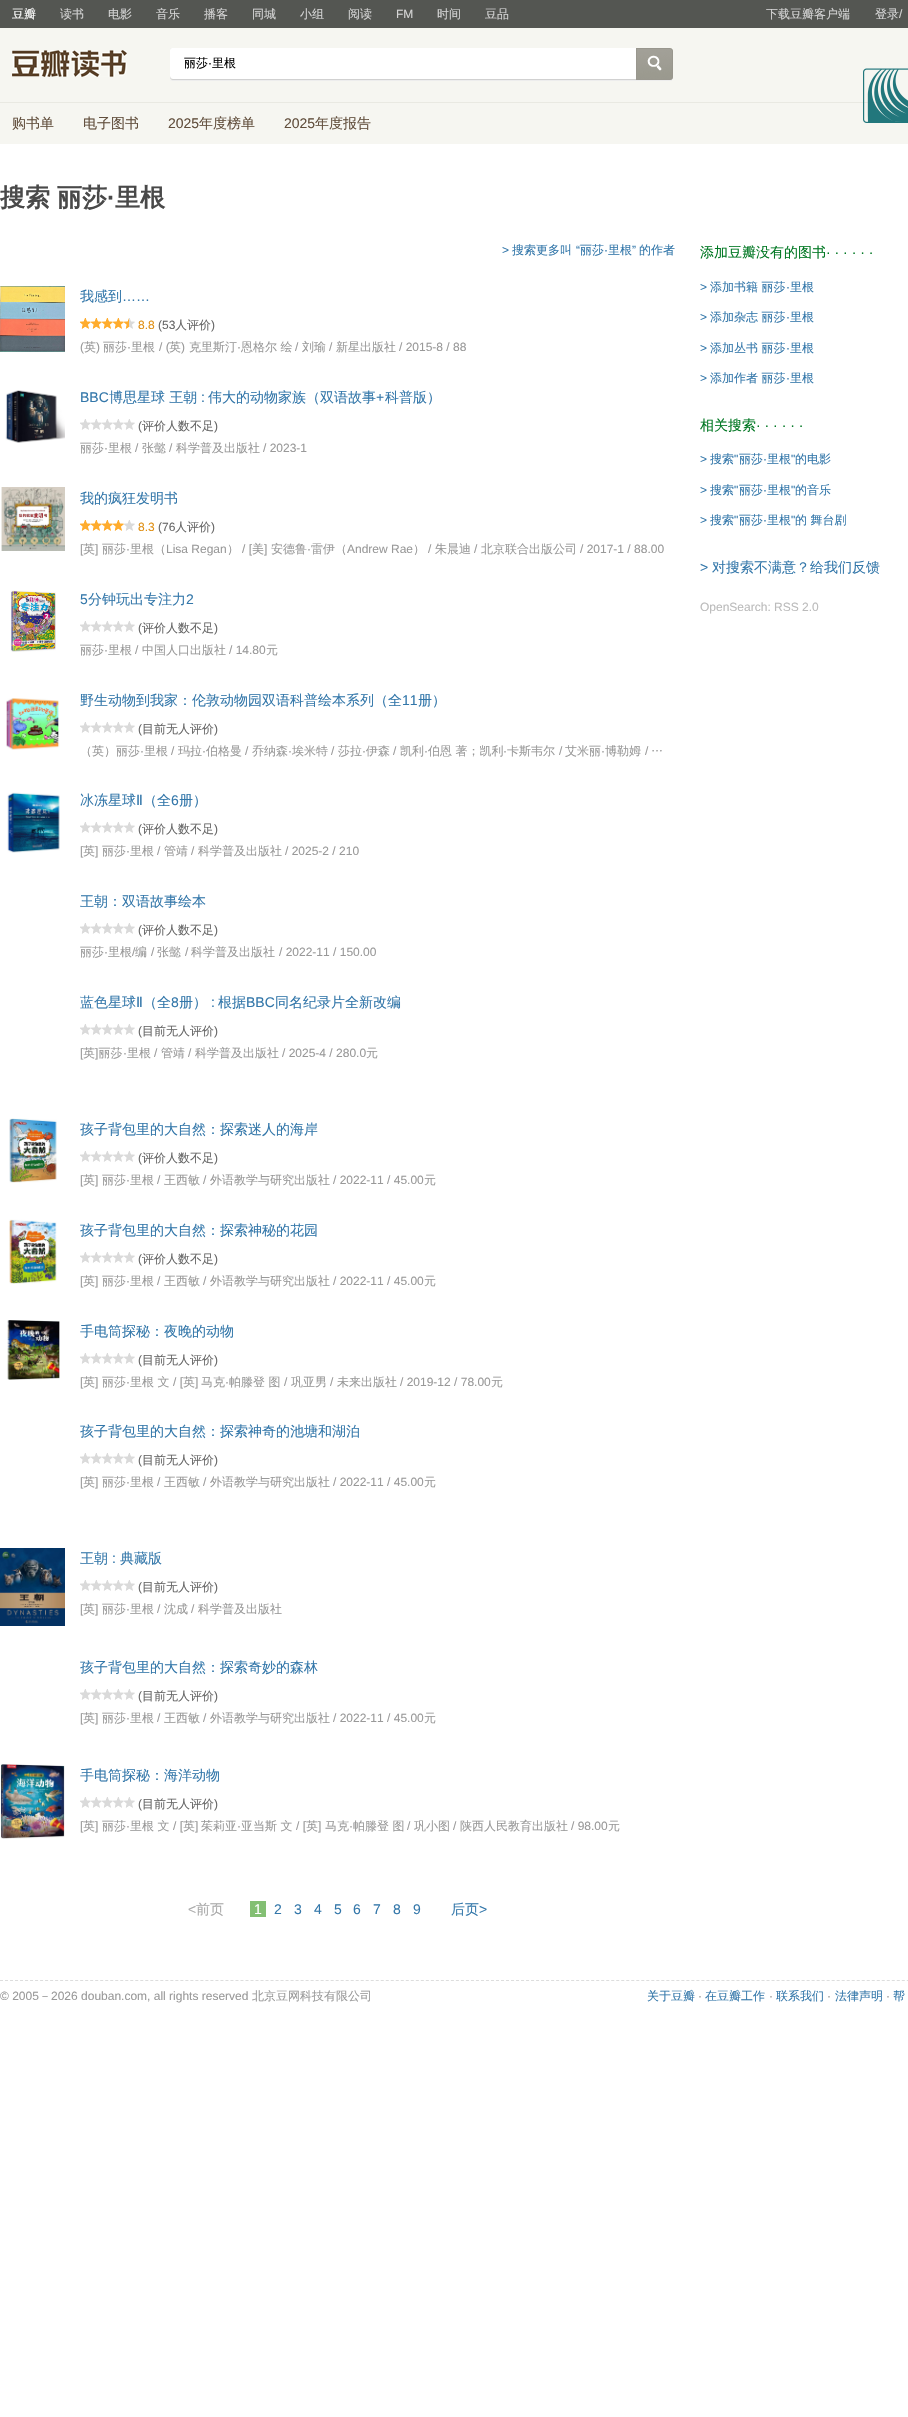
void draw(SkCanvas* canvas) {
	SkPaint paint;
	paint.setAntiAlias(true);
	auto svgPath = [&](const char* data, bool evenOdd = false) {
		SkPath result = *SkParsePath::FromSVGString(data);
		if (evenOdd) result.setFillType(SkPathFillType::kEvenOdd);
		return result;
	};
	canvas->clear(0xffffffff);
	paint.setColor(0xff545652);
	canvas->drawRect(SkRect::MakeXYWH(0, 0, 908, 28), paint);
	SkFont f1(fontMgr->matchFamilyStyle("WenQuanYi Zen Hei", SkFontStyle(500, SkFontStyle::kNormal_Width, SkFontStyle::kUpright_Slant)), 12);
	f1.setSubpixel(true);
	paint.setColor(0xffffffff);
	canvas->drawString("豆瓣", 12, 18, f1, paint);
	paint.setColor(0xffd5d5d5);
	canvas->drawString("读书", 60, 18, f1, paint);
	canvas->drawString("电影", 108, 18, f1, paint);
	canvas->drawString("音乐", 156, 18, f1, paint);
	canvas->drawString("播客", 204, 18, f1, paint);
	canvas->drawString("同城", 252, 18, f1, paint);
	canvas->drawString("小组", 300, 18, f1, paint);
	canvas->drawString("阅读", 348, 18, f1, paint);
	SkFont f2(fontMgr->matchFamilyStyle("Liberation Sans", SkFontStyle::Normal()), 12);
	f2.setSubpixel(true);
	canvas->drawString("FM", 396, 18, f2, paint);
	canvas->drawString("时间", 437, 18, f1, paint);
	canvas->drawString("豆品", 485, 18, f1, paint);
	canvas->drawString("下载豆瓣客户端", 766, 18, f1, paint);
	canvas->drawString("登录", 875, 18, f1, paint);
	canvas->drawString("/", 899, 18, f2, paint);
	paint.setColor(0xfff6f6f1);
	canvas->drawRect(SkRect::MakeXYWH(0, 28, 908, 116), paint);
	paint.setColor(0xffe9e9e2);
	canvas->drawRect(SkRect::MakeXYWH(0, 102, 908, 1), paint);
	canvas->drawImageRect(SkImages::DeferredFromEncodedData(SkData::MakeFromFileName("img1.png")), SkRect::MakeXYWH(12, 50, 115, 27), SkSamplingOptions());
	canvas->drawImageRect(SkImages::DeferredFromEncodedData(SkData::MakeFromFileName("img2.png")), SkRect::MakeXYWH(170, 48, 466, 33), SkSamplingOptions());
	paint.setColor(0xff000000);
	canvas->drawString("丽莎", 184, 67, f1, paint);
	canvas->drawString("·", 208, 67, f2, paint);
	canvas->drawString("里根", 212, 67, f1, paint);
	canvas->drawImageRect(SkImages::DeferredFromEncodedData(SkData::MakeFromFileName("img3.png")), SkRect::MakeXYWH(636, 48, 37, 33), SkSamplingOptions());
	SkFont f3(fontMgr->matchFamilyStyle("WenQuanYi Zen Hei", SkFontStyle(500, SkFontStyle::kNormal_Width, SkFontStyle::kUpright_Slant)), 14);
	f3.setSubpixel(true);
	paint.setColor(0xff614e3c);
	canvas->drawString("购书单", 12, 128, f3, paint);
	canvas->drawString("电子图书", 83, 128, f3, paint);
	SkFont f4(fontMgr->matchFamilyStyle("Liberation Sans", SkFontStyle::Normal()), 14);
	f4.setSubpixel(true);
	canvas->drawString("2025", 168, 128, f4, paint);
	canvas->drawString("年度榜单", 199, 128, f3, paint);
	canvas->drawString("2025", 284, 128, f4, paint);
	canvas->drawString("年度报告", 315, 128, f3, paint);
	canvas->drawImageRect(SkImages::DeferredFromEncodedData(SkData::MakeFromFileName("img4.png")), SkRect::MakeXYWH(863, 68, 45, 55), SkSamplingOptions());
	SkFont f5(fontMgr->matchFamilyStyle("WenQuanYi Zen Hei", SkFontStyle::Bold()), 25);
	f5.setSubpixel(true);
	paint.setColor(0xff494949);
	canvas->drawString("搜索", 0, 206, f5, paint);
	canvas->drawString("丽莎", 57, 206, f5, paint);
	SkFont f6(fontMgr->matchFamilyStyle("Liberation Sans", SkFontStyle::Bold()), 25);
	f6.setSubpixel(true);
	canvas->drawString("·", 107, 206, f6, paint);
	canvas->drawString("里根", 115, 206, f5, paint);
	paint.setColor(0xff3377aa);
	canvas->drawString(">", 502, 254, f2, paint);
	canvas->drawString("搜索更多叫", 512, 254, f1, paint);
	canvas->drawString("“", 576, 254, f2, paint);
	canvas->drawString("丽莎", 580, 254, f1, paint);
	canvas->drawString("·", 604, 254, f2, paint);
	canvas->drawString("里根", 608, 254, f1, paint);
	canvas->drawString("”", 632, 254, f2, paint);
	canvas->drawString("的作者", 639, 254, f1, paint);
	canvas->drawImageRect(SkImages::DeferredFromEncodedData(SkData::MakeFromFileName("img5.png")), SkRect::MakeXYWH(0, 286, 65, 66), SkSamplingOptions());
	canvas->drawString("我感到", 80, 301, f3, paint);
	canvas->drawString("……", 122, 301, f4, paint);
	canvas->drawImageRect(SkImages::DeferredFromEncodedData(SkData::MakeFromFileName("img6.png")), SkRect::MakeXYWH(80, 318, 55, 11), SkSamplingOptions());
	paint.setColor(0xffe09015);
	canvas->drawString("8.8", 138, 329, f2, paint);
	paint.setColor(0xff666666);
	canvas->drawString("(53", 158, 329, f2, paint);
	canvas->drawString("人评价", 175, 329, f1, paint);
	canvas->drawString(")", 211, 329, f2, paint);
	paint.setColor(0xff999999);
	canvas->drawString("(", 80, 351, f2, paint);
	canvas->drawString("英", 84, 351, f1, paint);
	canvas->drawString(")", 96, 351, f2, paint);
	canvas->drawString("丽莎", 103, 351, f1, paint);
	canvas->drawString("·", 127, 351, f2, paint);
	canvas->drawString("里根", 131, 351, f1, paint);
	canvas->drawString("/ (", 159, 351, f2, paint);
	canvas->drawString("英", 169, 351, f1, paint);
	canvas->drawString(")", 181, 351, f2, paint);
	canvas->drawString("克里斯汀", 189, 351, f1, paint);
	canvas->drawString("·", 237, 351, f2, paint);
	canvas->drawString("恩格尔 绘", 241, 351, f1, paint);
	canvas->drawString("/", 295, 351, f2, paint);
	canvas->drawString("刘瑜", 302, 351, f1, paint);
	canvas->drawString("/", 329, 351, f2, paint);
	canvas->drawString("新星出版社", 336, 351, f1, paint);
	canvas->drawString("/ 2015-8 / 88", 399, 351, f2, paint);
	canvas->drawImageRect(SkImages::DeferredFromEncodedData(SkData::MakeFromFileName("img7.png")), SkRect::MakeXYWH(5, 390, 60, 53), SkSamplingOptions());
	paint.setColor(0xff3377aa);
	canvas->drawString("BBC", 80, 402, f4, paint);
	canvas->drawString("博思星球 王朝", 109, 402, f3, paint);
	canvas->drawString(":", 201, 402, f4, paint);
	canvas->drawString("伟大的动物家族（双语故事", 208, 402, f3, paint);
	canvas->drawString("+", 376, 402, f4, paint);
	canvas->drawString("科普版）", 385, 402, f3, paint);
	canvas->drawImageRect(SkImages::DeferredFromEncodedData(SkData::MakeFromFileName("img8.png")), SkRect::MakeXYWH(80, 419, 55, 11), SkSamplingOptions());
	paint.setColor(0xff666666);
	canvas->drawString("(", 138, 430, f2, paint);
	canvas->drawString("评价人数不足", 142, 430, f1, paint);
	canvas->drawString(")", 214, 430, f2, paint);
	paint.setColor(0xff999999);
	canvas->drawString("丽莎", 80, 452, f1, paint);
	canvas->drawString("·", 104, 452, f2, paint);
	canvas->drawString("里根", 108, 452, f1, paint);
	canvas->drawString("/", 135, 452, f2, paint);
	canvas->drawString("张懿", 142, 452, f1, paint);
	canvas->drawString("/", 169, 452, f2, paint);
	canvas->drawString("科学普及出版社", 176, 452, f1, paint);
	canvas->drawString("/ 2023-1", 263, 452, f2, paint);
	canvas->drawImageRect(SkImages::DeferredFromEncodedData(SkData::MakeFromFileName("img9.png")), SkRect::MakeXYWH(1, 487, 64, 64), SkSamplingOptions());
	paint.setColor(0xff3377aa);
	canvas->drawString("我的疯狂发明书", 80, 503, f3, paint);
	canvas->drawImageRect(SkImages::DeferredFromEncodedData(SkData::MakeFromFileName("img10.png")), SkRect::MakeXYWH(80, 520, 55, 11), SkSamplingOptions());
	paint.setColor(0xffe09015);
	canvas->drawString("8.3", 138, 531, f2, paint);
	paint.setColor(0xff666666);
	canvas->drawString("(76", 158, 531, f2, paint);
	canvas->drawString("人评价", 175, 531, f1, paint);
	canvas->drawString(")", 211, 531, f2, paint);
	paint.setColor(0xff999999);
	canvas->drawString("[", 80, 553, f2, paint);
	canvas->drawString("英", 83, 553, f1, paint);
	canvas->drawString("]", 95, 553, f2, paint);
	canvas->drawString("丽莎", 102, 553, f1, paint);
	canvas->drawString("·", 126, 553, f2, paint);
	canvas->drawString("里根（", 130, 553, f1, paint);
	canvas->drawString("Lisa Regan", 166, 553, f2, paint);
	canvas->drawString("）", 227, 553, f1, paint);
	canvas->drawString("/ [", 242, 553, f2, paint);
	canvas->drawString("美", 252, 553, f1, paint);
	canvas->drawString("]", 264, 553, f2, paint);
	canvas->drawString("安德鲁", 271, 553, f1, paint);
	canvas->drawString("·", 307, 553, f2, paint);
	canvas->drawString("雷伊（", 311, 553, f1, paint);
	canvas->drawString("Andrew Rae", 347, 553, f2, paint);
	canvas->drawString("）", 413, 553, f1, paint);
	canvas->drawString("/", 428, 553, f2, paint);
	canvas->drawString("朱晨迪", 435, 553, f1, paint);
	canvas->drawString("/", 474, 553, f2, paint);
	canvas->drawString("北京联合出版公司", 481, 553, f1, paint);
	canvas->drawString("/ 2017-1 / 88.00", 580, 553, f2, paint);
	canvas->drawImageRect(SkImages::DeferredFromEncodedData(SkData::MakeFromFileName("img11.png")), SkRect::MakeXYWH(10, 590, 46, 62), SkSamplingOptions());
	paint.setColor(0xff3377aa);
	canvas->drawString("5", 80, 604, f4, paint);
	canvas->drawString("分钟玩出专注力", 88, 604, f3, paint);
	canvas->drawString("2", 186, 604, f4, paint);
	canvas->drawImageRect(SkImages::DeferredFromEncodedData(SkData::MakeFromFileName("img8.png")), SkRect::MakeXYWH(80, 621, 55, 11), SkSamplingOptions());
	paint.setColor(0xff666666);
	canvas->drawString("(", 138, 632, f2, paint);
	canvas->drawString("评价人数不足", 142, 632, f1, paint);
	canvas->drawString(")", 214, 632, f2, paint);
	paint.setColor(0xff999999);
	canvas->drawString("丽莎", 80, 654, f1, paint);
	canvas->drawString("·", 104, 654, f2, paint);
	canvas->drawString("里根", 108, 654, f1, paint);
	canvas->drawString("/", 135, 654, f2, paint);
	canvas->drawString("中国人口出版社", 142, 654, f1, paint);
	canvas->drawString("/ 14.80", 229, 654, f2, paint);
	canvas->drawString("元", 266, 654, f1, paint);
	canvas->drawImageRect(SkImages::DeferredFromEncodedData(SkData::MakeFromFileName("img12.png")), SkRect::MakeXYWH(6, 698, 54, 52), SkSamplingOptions());
	paint.setColor(0xff3377aa);
	canvas->drawString("野生动物到我家：伦敦动物园双语科普绘本系列（全", 80, 705, f3, paint);
	canvas->drawString("11", 402, 705, f4, paint);
	canvas->drawString("册）", 418, 705, f3, paint);
	canvas->drawImageRect(SkImages::DeferredFromEncodedData(SkData::MakeFromFileName("img8.png")), SkRect::MakeXYWH(80, 722, 55, 11), SkSamplingOptions());
	paint.setColor(0xff666666);
	canvas->drawString("(", 138, 733, f2, paint);
	canvas->drawString("目前无人评价", 142, 733, f1, paint);
	canvas->drawString(")", 214, 733, f2, paint);
	paint.setColor(0xff999999);
	canvas->drawString("（英）丽莎", 80, 755, f1, paint);
	canvas->drawString("·", 140, 755, f2, paint);
	canvas->drawString("里根", 144, 755, f1, paint);
	canvas->drawString("/", 171, 755, f2, paint);
	canvas->drawString("玛拉", 178, 755, f1, paint);
	canvas->drawString("·", 202, 755, f2, paint);
	canvas->drawString("伯格曼", 206, 755, f1, paint);
	canvas->drawString("/", 245, 755, f2, paint);
	canvas->drawString("乔纳森", 252, 755, f1, paint);
	canvas->drawString("·", 288, 755, f2, paint);
	canvas->drawString("埃米特", 292, 755, f1, paint);
	canvas->drawString("/", 331, 755, f2, paint);
	canvas->drawString("莎拉", 338, 755, f1, paint);
	canvas->drawString("·", 362, 755, f2, paint);
	canvas->drawString("伊森", 366, 755, f1, paint);
	canvas->drawString("/", 393, 755, f2, paint);
	canvas->drawString("凯利", 400, 755, f1, paint);
	canvas->drawString("·", 424, 755, f2, paint);
	canvas->drawString("伯恩 著；凯利", 428, 755, f1, paint);
	canvas->drawString("·", 503, 755, f2, paint);
	canvas->drawString("卡斯韦尔", 507, 755, f1, paint);
	canvas->drawString("/", 559, 755, f2, paint);
	canvas->drawString("艾米丽", 565, 755, f1, paint);
	canvas->drawString("·", 601, 755, f2, paint);
	canvas->drawString("博勒姆", 605, 755, f1, paint);
	canvas->drawString("/", 645, 755, f2, paint);
	canvas->drawString("…", 651, 755, f1, paint);
	canvas->drawImageRect(SkImages::DeferredFromEncodedData(SkData::MakeFromFileName("img13.png")), SkRect::MakeXYWH(7, 792, 53, 61), SkSamplingOptions());
	paint.setColor(0xff3377aa);
	canvas->drawString("冰冻星球", 80, 805, f3, paint);
	SkFont f7(fontMgr->matchFamilyStyle("DejaVu Sans", SkFontStyle::Normal()), 14);
	f7.setSubpixel(true);
	canvas->drawString("Ⅱ", 136, 805, f7, paint);
	canvas->drawString("（全", 143, 805, f3, paint);
	canvas->drawString("6", 171, 805, f4, paint);
	canvas->drawString("册）", 179, 805, f3, paint);
	canvas->drawImageRect(SkImages::DeferredFromEncodedData(SkData::MakeFromFileName("img8.png")), SkRect::MakeXYWH(80, 822, 55, 11), SkSamplingOptions());
	paint.setColor(0xff666666);
	canvas->drawString("(", 138, 833, f2, paint);
	canvas->drawString("评价人数不足", 142, 833, f1, paint);
	canvas->drawString(")", 214, 833, f2, paint);
	paint.setColor(0xff999999);
	canvas->drawString("[", 80, 855, f2, paint);
	canvas->drawString("英", 83, 855, f1, paint);
	canvas->drawString("]", 95, 855, f2, paint);
	canvas->drawString("丽莎", 102, 855, f1, paint);
	canvas->drawString("·", 126, 855, f2, paint);
	canvas->drawString("里根", 130, 855, f1, paint);
	canvas->drawString("/", 157, 855, f2, paint);
	canvas->drawString("管靖", 164, 855, f1, paint);
	canvas->drawString("/", 191, 855, f2, paint);
	canvas->drawString("科学普及出版社", 198, 855, f1, paint);
	canvas->drawString("/ 2025-2 / 210", 285, 855, f2, paint);
	paint.setColor(0xff3377aa);
	canvas->drawString("王朝：双语故事绘本", 80, 906, f3, paint);
	canvas->drawImageRect(SkImages::DeferredFromEncodedData(SkData::MakeFromFileName("img8.png")), SkRect::MakeXYWH(80, 923, 55, 11), SkSamplingOptions());
	paint.setColor(0xff666666);
	canvas->drawString("(", 138, 934, f2, paint);
	canvas->drawString("评价人数不足", 142, 934, f1, paint);
	canvas->drawString(")", 214, 934, f2, paint);
	paint.setColor(0xff999999);
	canvas->drawString("丽莎", 80, 956, f1, paint);
	canvas->drawString("·", 104, 956, f2, paint);
	canvas->drawString("里根", 108, 956, f1, paint);
	canvas->drawString("/", 132, 956, f2, paint);
	canvas->drawString("编", 135, 956, f1, paint);
	canvas->drawString("/", 151, 956, f2, paint);
	canvas->drawString("张懿", 157, 956, f1, paint);
	canvas->drawString("/", 185, 956, f2, paint);
	canvas->drawString("科学普及出版社", 191, 956, f1, paint);
	canvas->drawString("/ 2022-11 / 150.00", 279, 956, f2, paint);
	paint.setColor(0xff3377aa);
	canvas->drawString("蓝色星球", 80, 1007, f3, paint);
	canvas->drawString("Ⅱ", 136, 1007, f7, paint);
	canvas->drawString("（全", 143, 1007, f3, paint);
	canvas->drawString("8", 171, 1007, f4, paint);
	canvas->drawString("册）", 179, 1007, f3, paint);
	canvas->drawString(":", 211, 1007, f4, paint);
	canvas->drawString("根据", 218, 1007, f3, paint);
	canvas->drawString("BBC", 246, 1007, f4, paint);
	canvas->drawString("同名纪录片全新改编", 275, 1007, f3, paint);
	canvas->drawImageRect(SkImages::DeferredFromEncodedData(SkData::MakeFromFileName("img8.png")), SkRect::MakeXYWH(80, 1024, 55, 11), SkSamplingOptions());
	paint.setColor(0xff666666);
	canvas->drawString("(", 138, 1035, f2, paint);
	canvas->drawString("目前无人评价", 142, 1035, f1, paint);
	canvas->drawString(")", 214, 1035, f2, paint);
	paint.setColor(0xff999999);
	canvas->drawString("[", 80, 1057, f2, paint);
	canvas->drawString("英 丽莎", 83, 1057, f1, paint);
	canvas->drawString("里根", 127, 1057, f1, paint);
	canvas->drawString("管靖", 161, 1057, f1, paint);
	canvas->drawString("科学普及出版社", 195, 1057, f1, paint);
	canvas->drawString("元", 366, 1057, f1, paint);
	canvas->drawString("]", 95, 1057, f2, paint);
	canvas->drawString("·", 123, 1057, f2, paint);
	canvas->drawString("/", 154, 1057, f2, paint);
	canvas->drawString("/", 188, 1057, f2, paint);
	canvas->drawString("/ 2025-4 / 280.0", 282, 1057, f2, paint);
	canvas->drawImageRect(SkImages::DeferredFromEncodedData(SkData::MakeFromFileName("img14.png")), SkRect::MakeXYWH(9, 1118, 48, 65), SkSamplingOptions());
	paint.setColor(0xff3377aa);
	canvas->drawString("孩子背包里的大自然：探索迷人的海岸", 80, 1134, f3, paint);
	canvas->drawImageRect(SkImages::DeferredFromEncodedData(SkData::MakeFromFileName("img8.png")), SkRect::MakeXYWH(80, 1151, 55, 11), SkSamplingOptions());
	paint.setColor(0xff666666);
	canvas->drawString("(", 138, 1162, f2, paint);
	canvas->drawString("评价人数不足", 142, 1162, f1, paint);
	canvas->drawString(")", 214, 1162, f2, paint);
	paint.setColor(0xff999999);
	canvas->drawString("[", 80, 1184, f2, paint);
	canvas->drawString("英", 83, 1184, f1, paint);
	canvas->drawString("]", 95, 1184, f2, paint);
	canvas->drawString("丽莎", 102, 1184, f1, paint);
	canvas->drawString("·", 126, 1184, f2, paint);
	canvas->drawString("里根", 130, 1184, f1, paint);
	canvas->drawString("/", 157, 1184, f2, paint);
	canvas->drawString("王西敏", 164, 1184, f1, paint);
	canvas->drawString("/", 203, 1184, f2, paint);
	canvas->drawString("外语教学与研究出版社", 210, 1184, f1, paint);
	canvas->drawString("/ 2022-11 / 45.00", 333, 1184, f2, paint);
	canvas->drawString("元", 424, 1184, f1, paint);
	canvas->drawImageRect(SkImages::DeferredFromEncodedData(SkData::MakeFromFileName("img15.png")), SkRect::MakeXYWH(9, 1219, 48, 65), SkSamplingOptions());
	paint.setColor(0xff3377aa);
	canvas->drawString("孩子背包里的大自然：探索神秘的花园", 80, 1235, f3, paint);
	canvas->drawImageRect(SkImages::DeferredFromEncodedData(SkData::MakeFromFileName("img8.png")), SkRect::MakeXYWH(80, 1252, 55, 11), SkSamplingOptions());
	paint.setColor(0xff666666);
	canvas->drawString("(", 138, 1263, f2, paint);
	canvas->drawString("评价人数不足", 142, 1263, f1, paint);
	canvas->drawString(")", 214, 1263, f2, paint);
	paint.setColor(0xff999999);
	canvas->drawString("[", 80, 1285, f2, paint);
	canvas->drawString("英", 83, 1285, f1, paint);
	canvas->drawString("]", 95, 1285, f2, paint);
	canvas->drawString("丽莎", 102, 1285, f1, paint);
	canvas->drawString("·", 126, 1285, f2, paint);
	canvas->drawString("里根", 130, 1285, f1, paint);
	canvas->drawString("/", 157, 1285, f2, paint);
	canvas->drawString("王西敏", 164, 1285, f1, paint);
	canvas->drawString("/", 203, 1285, f2, paint);
	canvas->drawString("外语教学与研究出版社", 210, 1285, f1, paint);
	canvas->drawString("/ 2022-11 / 45.00", 333, 1285, f2, paint);
	canvas->drawString("元", 424, 1285, f1, paint);
	canvas->drawImageRect(SkImages::DeferredFromEncodedData(SkData::MakeFromFileName("img16.png")), SkRect::MakeXYWH(7, 1320, 53, 60), SkSamplingOptions());
	paint.setColor(0xff3377aa);
	canvas->drawString("手电筒探秘：夜晚的动物", 80, 1336, f3, paint);
	canvas->drawImageRect(SkImages::DeferredFromEncodedData(SkData::MakeFromFileName("img8.png")), SkRect::MakeXYWH(80, 1353, 55, 11), SkSamplingOptions());
	paint.setColor(0xff666666);
	canvas->drawString("(", 138, 1364, f2, paint);
	canvas->drawString("目前无人评价", 142, 1364, f1, paint);
	canvas->drawString(")", 214, 1364, f2, paint);
	paint.setColor(0xff999999);
	canvas->drawString("[", 80, 1386, f2, paint);
	canvas->drawString("英", 83, 1386, f1, paint);
	canvas->drawString("]", 95, 1386, f2, paint);
	canvas->drawString("丽莎", 102, 1386, f1, paint);
	canvas->drawString("·", 126, 1386, f2, paint);
	canvas->drawString("里根 文", 130, 1386, f1, paint);
	canvas->drawString("/ [", 173, 1386, f2, paint);
	canvas->drawString("英", 183, 1386, f1, paint);
	canvas->drawString("]", 195, 1386, f2, paint);
	canvas->drawString("马克", 201, 1386, f1, paint);
	canvas->drawString("·", 225, 1386, f2, paint);
	canvas->drawString("帕滕登 图", 229, 1386, f1, paint);
	canvas->drawString("/", 284, 1386, f2, paint);
	canvas->drawString("巩亚男", 291, 1386, f1, paint);
	canvas->drawString("/", 330, 1386, f2, paint);
	canvas->drawString("未来出版社", 337, 1386, f1, paint);
	canvas->drawString("/ 2019-12 / 78.00", 400, 1386, f2, paint);
	canvas->drawString("元", 491, 1386, f1, paint);
	paint.setColor(0xff3377aa);
	canvas->drawString("孩子背包里的大自然：探索神奇的池塘和湖泊", 80, 1436, f3, paint);
	canvas->drawImageRect(SkImages::DeferredFromEncodedData(SkData::MakeFromFileName("img8.png")), SkRect::MakeXYWH(80, 1453, 55, 11), SkSamplingOptions());
	paint.setColor(0xff666666);
	canvas->drawString("(", 138, 1464, f2, paint);
	canvas->drawString("目前无人评价", 142, 1464, f1, paint);
	canvas->drawString(")", 214, 1464, f2, paint);
	paint.setColor(0xff999999);
	canvas->drawString("[", 80, 1486, f2, paint);
	canvas->drawString("英", 83, 1486, f1, paint);
	canvas->drawString("]", 95, 1486, f2, paint);
	canvas->drawString("丽莎", 102, 1486, f1, paint);
	canvas->drawString("·", 126, 1486, f2, paint);
	canvas->drawString("里根", 130, 1486, f1, paint);
	canvas->drawString("/", 157, 1486, f2, paint);
	canvas->drawString("王西敏", 164, 1486, f1, paint);
	canvas->drawString("/", 203, 1486, f2, paint);
	canvas->drawString("外语教学与研究出版社", 210, 1486, f1, paint);
	canvas->drawString("/ 2022-11 / 45.00", 333, 1486, f2, paint);
	canvas->drawString("元", 424, 1486, f1, paint);
	canvas->drawImageRect(SkImages::DeferredFromEncodedData(SkData::MakeFromFileName("img17.png")), SkRect::MakeXYWH(0, 1548, 65, 78), SkSamplingOptions());
	paint.setColor(0xff3377aa);
	canvas->drawString("王朝", 80, 1563, f3, paint);
	canvas->drawString(":", 112, 1563, f4, paint);
	canvas->drawString("典藏版", 120, 1563, f3, paint);
	canvas->drawImageRect(SkImages::DeferredFromEncodedData(SkData::MakeFromFileName("img8.png")), SkRect::MakeXYWH(80, 1580, 55, 11), SkSamplingOptions());
	paint.setColor(0xff666666);
	canvas->drawString("(", 138, 1591, f2, paint);
	canvas->drawString("目前无人评价", 142, 1591, f1, paint);
	canvas->drawString(")", 214, 1591, f2, paint);
	paint.setColor(0xff999999);
	canvas->drawString("[", 80, 1613, f2, paint);
	canvas->drawString("英", 83, 1613, f1, paint);
	canvas->drawString("]", 95, 1613, f2, paint);
	canvas->drawString("丽莎", 102, 1613, f1, paint);
	canvas->drawString("·", 126, 1613, f2, paint);
	canvas->drawString("里根", 130, 1613, f1, paint);
	canvas->drawString("/", 157, 1613, f2, paint);
	canvas->drawString("沈成", 164, 1613, f1, paint);
	canvas->drawString("/", 191, 1613, f2, paint);
	canvas->drawString("科学普及出版社", 198, 1613, f1, paint);
	paint.setColor(0xff3377aa);
	canvas->drawString("孩子背包里的大自然：探索奇妙的森林", 80, 1672, f3, paint);
	canvas->drawImageRect(SkImages::DeferredFromEncodedData(SkData::MakeFromFileName("img8.png")), SkRect::MakeXYWH(80, 1689, 55, 11), SkSamplingOptions());
	paint.setColor(0xff666666);
	canvas->drawString("(", 138, 1700, f2, paint);
	canvas->drawString("目前无人评价", 142, 1700, f1, paint);
	canvas->drawString(")", 214, 1700, f2, paint);
	paint.setColor(0xff999999);
	canvas->drawString("[", 80, 1722, f2, paint);
	canvas->drawString("英", 83, 1722, f1, paint);
	canvas->drawString("]", 95, 1722, f2, paint);
	canvas->drawString("丽莎", 102, 1722, f1, paint);
	canvas->drawString("·", 126, 1722, f2, paint);
	canvas->drawString("里根", 130, 1722, f1, paint);
	canvas->drawString("/", 157, 1722, f2, paint);
	canvas->drawString("王西敏", 164, 1722, f1, paint);
	canvas->drawString("/", 203, 1722, f2, paint);
	canvas->drawString("外语教学与研究出版社", 210, 1722, f1, paint);
	canvas->drawString("/ 2022-11 / 45.00", 333, 1722, f2, paint);
	canvas->drawString("元", 424, 1722, f1, paint);
	canvas->drawImageRect(SkImages::DeferredFromEncodedData(SkData::MakeFromFileName("img18.png")), SkRect::MakeXYWH(0, 1764, 65, 75), SkSamplingOptions());
	paint.setColor(0xff3377aa);
	canvas->drawString("手电筒探秘：海洋动物", 80, 1780, f3, paint);
	canvas->drawImageRect(SkImages::DeferredFromEncodedData(SkData::MakeFromFileName("img8.png")), SkRect::MakeXYWH(80, 1797, 55, 11), SkSamplingOptions());
	paint.setColor(0xff666666);
	canvas->drawString("(", 138, 1808, f2, paint);
	canvas->drawString("目前无人评价", 142, 1808, f1, paint);
	canvas->drawString(")", 214, 1808, f2, paint);
	paint.setColor(0xff999999);
	canvas->drawString("[", 80, 1830, f2, paint);
	canvas->drawString("英", 83, 1830, f1, paint);
	canvas->drawString("]", 95, 1830, f2, paint);
	canvas->drawString("丽莎", 102, 1830, f1, paint);
	canvas->drawString("·", 126, 1830, f2, paint);
	canvas->drawString("里根 文", 130, 1830, f1, paint);
	canvas->drawString("/ [", 173, 1830, f2, paint);
	canvas->drawString("英", 183, 1830, f1, paint);
	canvas->drawString("]", 195, 1830, f2, paint);
	canvas->drawString("茱莉亚", 201, 1830, f1, paint);
	canvas->drawString("·", 237, 1830, f2, paint);
	canvas->drawString("亚当斯 文", 241, 1830, f1, paint);
	canvas->drawString("/ [", 296, 1830, f2, paint);
	canvas->drawString("英", 306, 1830, f1, paint);
	canvas->drawString("]", 318, 1830, f2, paint);
	canvas->drawString("马克", 325, 1830, f1, paint);
	canvas->drawString("·", 349, 1830, f2, paint);
	canvas->drawString("帕滕登 图", 353, 1830, f1, paint);
	canvas->drawString("/", 407, 1830, f2, paint);
	canvas->drawString("巩小图", 414, 1830, f1, paint);
	canvas->drawString("/", 453, 1830, f2, paint);
	canvas->drawString("陕西人民教育出版社", 460, 1830, f1, paint);
	canvas->drawString("/ 98.00", 571, 1830, f2, paint);
	canvas->drawString("元", 608, 1830, f1, paint);
	paint.setColor(0xffaaaaaa);
	canvas->drawString("<", 188, 1914, f4, paint);
	canvas->drawString("前页", 196, 1914, f3, paint);
	paint.setColor(0xff83bf73);
	canvas->drawRect(SkRect::MakeXYWH(250, 1901, 16, 16), paint);
	paint.setColor(0xffffffff);
	canvas->drawString("1", 254, 1914, f4, paint);
	paint.setColor(0xff3377aa);
	canvas->drawString("2", 274, 1914, f4, paint);
	canvas->drawString("3", 294, 1914, f4, paint);
	canvas->drawString("4", 314, 1914, f4, paint);
	canvas->drawString("5", 334, 1914, f4, paint);
	canvas->drawString("6", 353, 1914, f4, paint);
	canvas->drawString("7", 373, 1914, f4, paint);
	canvas->drawString("8", 393, 1914, f4, paint);
	canvas->drawString("9", 413, 1914, f4, paint);
	canvas->drawString("后页", 451, 1914, f3, paint);
	canvas->drawString(">", 479, 1914, f4, paint);
	paint.setColor(0xff007722);
	canvas->drawString("添加豆瓣没有的图书", 700, 257, f3, paint);
	canvas->drawString("· · · · · ·", 826, 257, f4, paint);
	paint.setColor(0xff3377aa);
	canvas->drawString(">", 700, 291, f2, paint);
	canvas->drawString("添加书籍 丽莎", 710, 291, f1, paint);
	canvas->drawString("·", 786, 291, f2, paint);
	canvas->drawString("里根", 790, 291, f1, paint);
	canvas->drawString(">", 700, 321, f2, paint);
	canvas->drawString("添加杂志 丽莎", 710, 321, f1, paint);
	canvas->drawString("·", 786, 321, f2, paint);
	canvas->drawString("里根", 790, 321, f1, paint);
	canvas->drawString(">", 700, 352, f2, paint);
	canvas->drawString("添加丛书 丽莎", 710, 352, f1, paint);
	canvas->drawString("·", 786, 352, f2, paint);
	canvas->drawString("里根", 790, 352, f1, paint);
	canvas->drawString(">", 700, 382, f2, paint);
	canvas->drawString("添加作者 丽莎", 710, 382, f1, paint);
	canvas->drawString("·", 786, 382, f2, paint);
	canvas->drawString("里根", 790, 382, f1, paint);
	paint.setColor(0xff007722);
	canvas->drawString("相关搜索", 700, 430, f3, paint);
	canvas->drawString("· · · · · ·", 756, 430, f4, paint);
	paint.setColor(0xff3377aa);
	canvas->drawString(">", 700, 463, f2, paint);
	canvas->drawString("搜索", 710, 463, f1, paint);
	canvas->drawString("\"", 734, 463, f2, paint);
	canvas->drawString("丽莎", 739, 463, f1, paint);
	canvas->drawString("·", 763, 463, f2, paint);
	canvas->drawString("里根", 767, 463, f1, paint);
	canvas->drawString("\"", 791, 463, f2, paint);
	canvas->drawString("的电影", 795, 463, f1, paint);
	canvas->drawString(">", 700, 494, f2, paint);
	canvas->drawString("搜索", 710, 494, f1, paint);
	canvas->drawString("\"", 734, 494, f2, paint);
	canvas->drawString("丽莎", 739, 494, f1, paint);
	canvas->drawString("·", 763, 494, f2, paint);
	canvas->drawString("里根", 767, 494, f1, paint);
	canvas->drawString("\"", 791, 494, f2, paint);
	canvas->drawString("的音乐", 795, 494, f1, paint);
	canvas->drawString(">", 700, 524, f2, paint);
	canvas->drawString("搜索", 710, 524, f1, paint);
	canvas->drawString("\"", 734, 524, f2, paint);
	canvas->drawString("丽莎", 739, 524, f1, paint);
	canvas->drawString("·", 763, 524, f2, paint);
	canvas->drawString("里根", 767, 524, f1, paint);
	canvas->drawString("\"", 791, 524, f2, paint);
	canvas->drawString("的 舞台剧", 795, 524, f1, paint);
	canvas->drawString(">", 700, 572, f4, paint);
	canvas->drawString("对搜索不满意？给我们反馈", 712, 572, f3, paint);
	paint.setColor(0xffbbbbbb);
	canvas->drawString("OpenSearch: RSS 2.0", 700, 611, f2, paint);
	paint.setStroke(true);
	paint.setStrokeWidth(1);
	paint.setColor(0xffdddddd);
	paint.setPathEffect(SkDashPathEffect::Make({{3, 2.01f}}, 0));
	canvas->drawPath(svgPath("M0 1980.5H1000"), paint);
	paint.setPathEffect(nullptr);
	paint.setStroke(false);
	paint.setColor(0xff999999);
	canvas->drawString("© 2005", 0, 2000, f2, paint);
	canvas->drawString("－", 39, 2000, f1, paint);
	canvas->drawString("2026 douban.com, all rights reserved", 51, 2000, f2, paint);
	canvas->drawString("北京豆网科技有限公司", 252, 2000, f1, paint);
	paint.setColor(0xff3377aa);
	canvas->drawString("关于豆瓣", 647, 2000, f1, paint);
	paint.setColor(0xff999999);
	canvas->drawString("·", 698, 2000, f2, paint);
	paint.setColor(0xff3377aa);
	canvas->drawString("在豆瓣工作", 705, 2000, f1, paint);
	paint.setColor(0xff999999);
	canvas->drawString("·", 769, 2000, f2, paint);
	paint.setColor(0xff3377aa);
	canvas->drawString("联系我们", 776, 2000, f1, paint);
	paint.setColor(0xff999999);
	canvas->drawString("·", 827, 2000, f2, paint);
	paint.setColor(0xff3377aa);
	canvas->drawString("法律声明", 835, 2000, f1, paint);
	paint.setColor(0xff999999);
	canvas->drawString("·", 886, 2000, f2, paint);
	paint.setColor(0xff3377aa);
	canvas->drawString("帮", 893, 2000, f1, paint);
}
